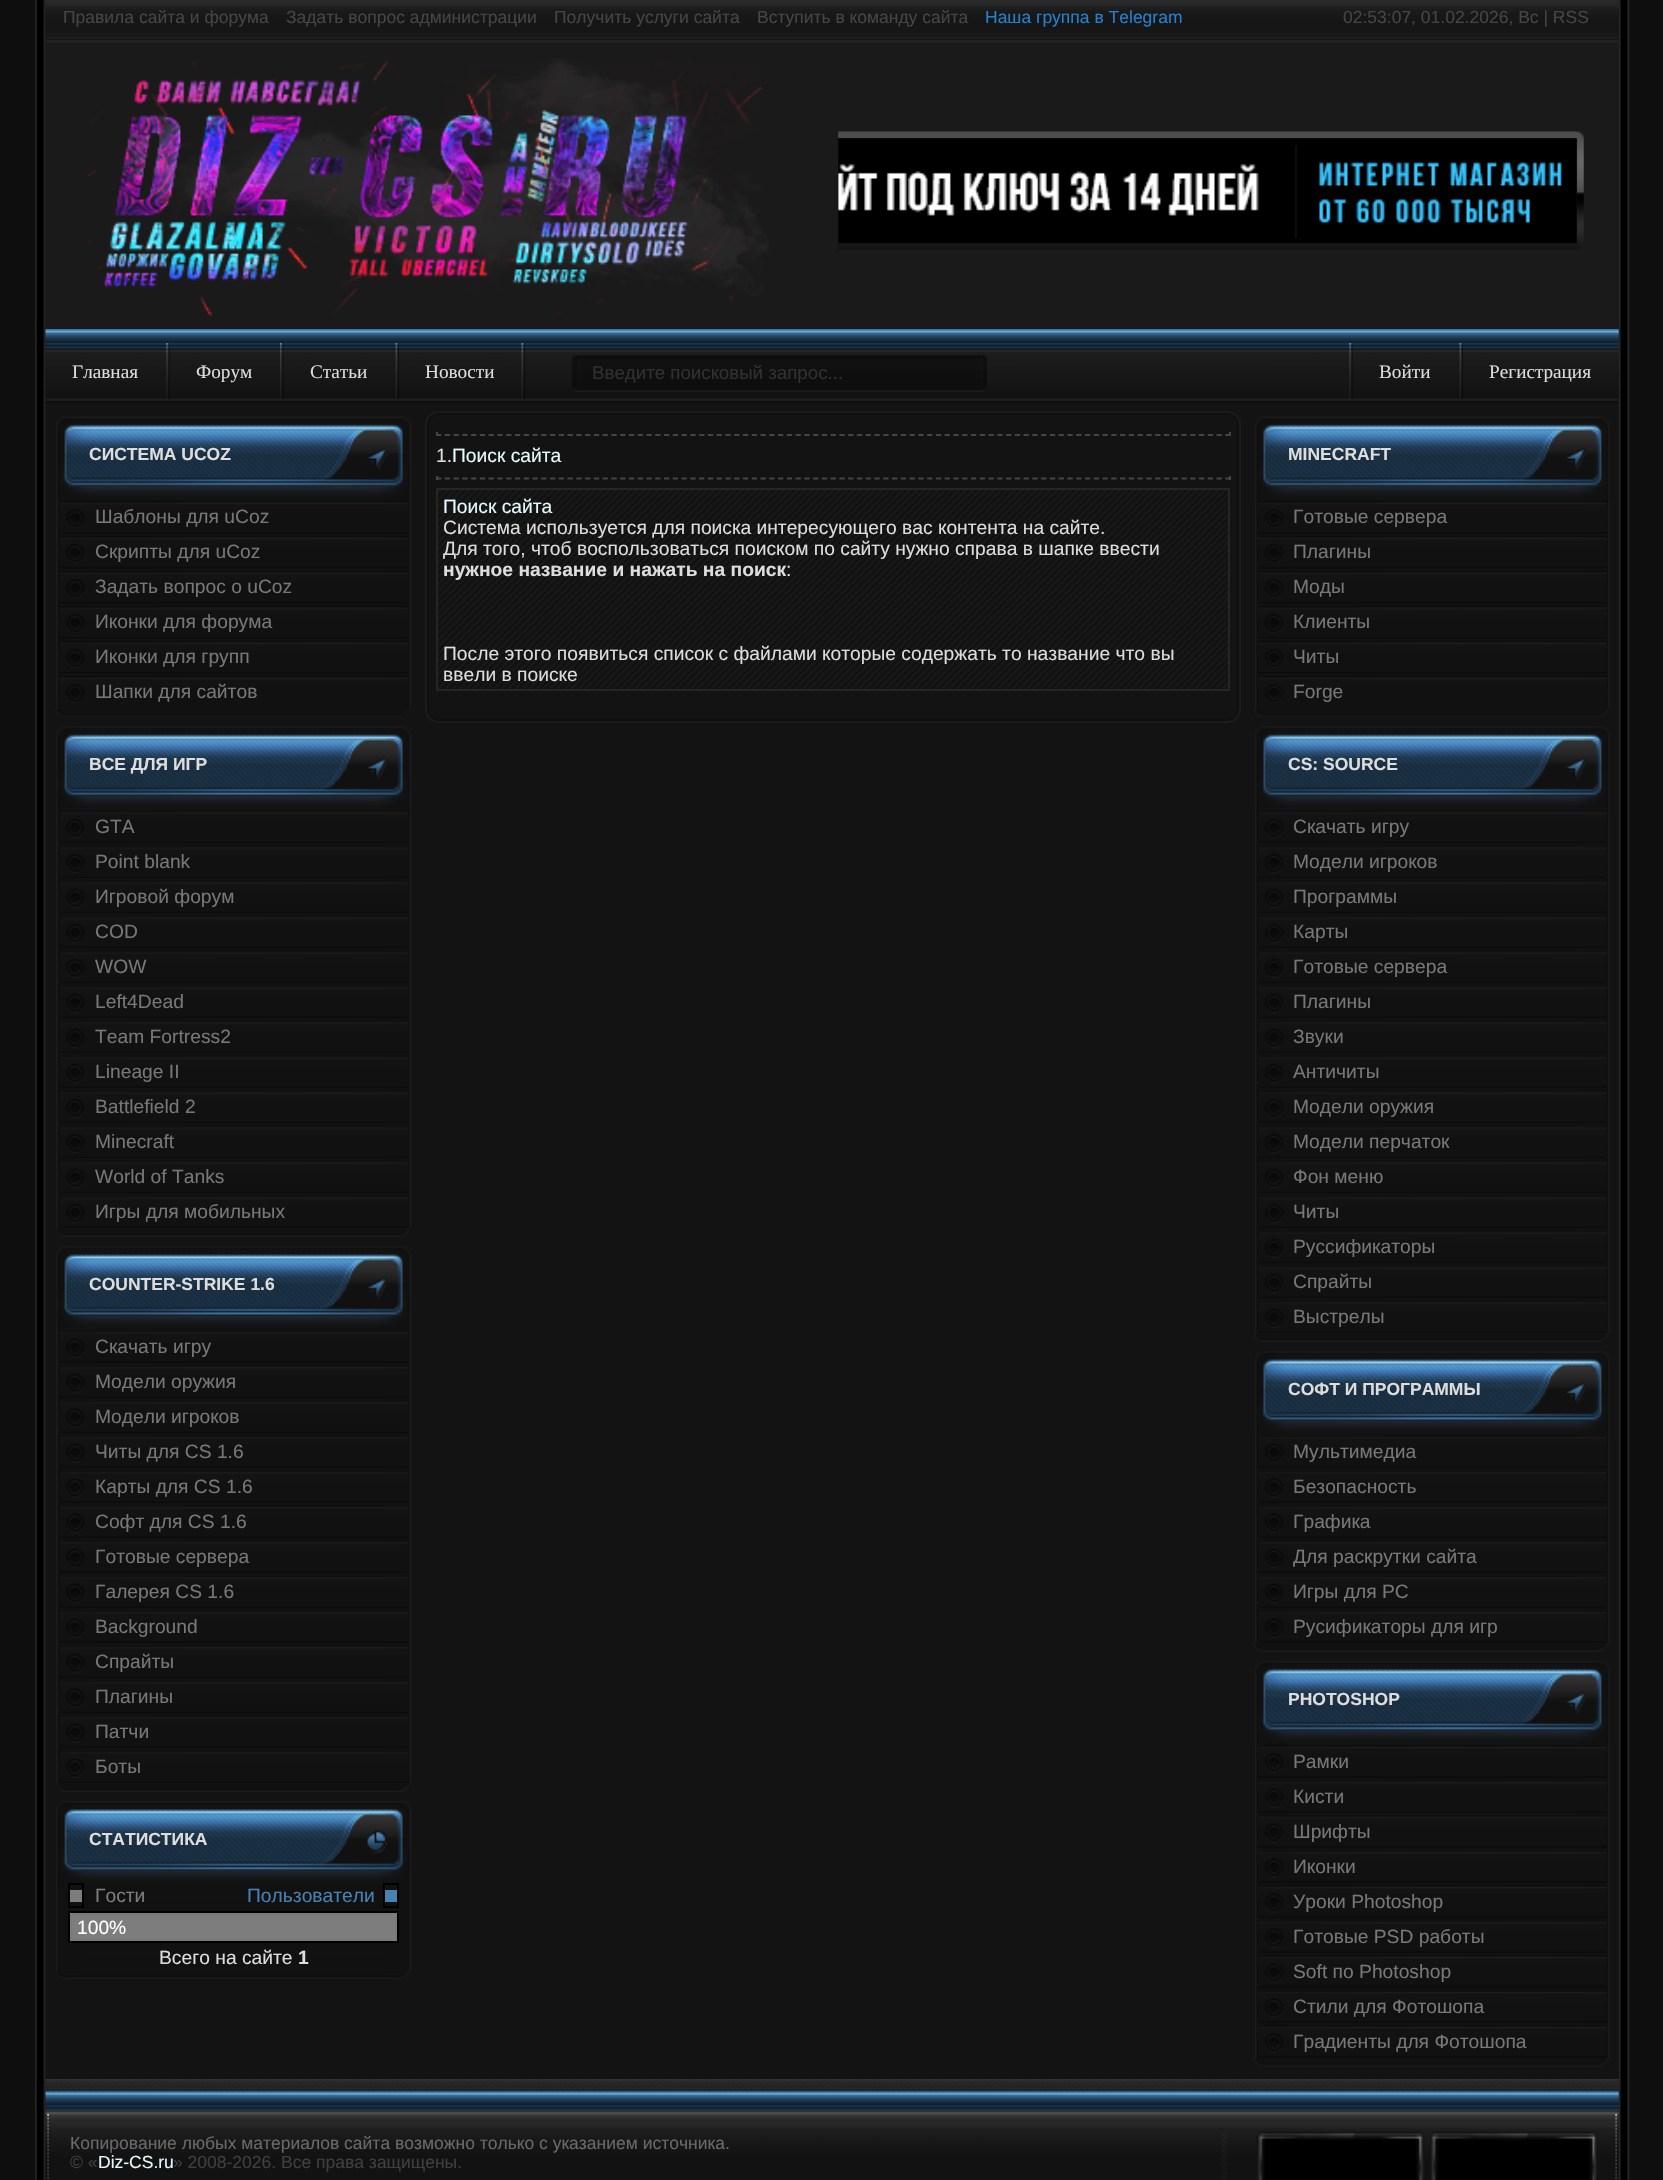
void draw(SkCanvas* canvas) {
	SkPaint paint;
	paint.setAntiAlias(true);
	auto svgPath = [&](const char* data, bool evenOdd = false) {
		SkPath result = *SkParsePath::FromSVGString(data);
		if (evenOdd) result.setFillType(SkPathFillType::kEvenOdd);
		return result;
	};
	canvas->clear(0xff0e0e0e);
	canvas->drawImageRect(SkImages::DeferredFromEncodedData(SkData::MakeFromFileName("img1.png")), SkRect::MakeXYWH(35, 0, 11, 2180), SkSamplingOptions());
	canvas->drawImageRect(SkImages::DeferredFromEncodedData(SkData::MakeFromFileName("img2.png")), SkRect::MakeXYWH(1618, 0, 12, 2180), SkSamplingOptions());
	canvas->drawImageRect(SkImages::DeferredFromEncodedData(SkData::MakeFromFileName("img3.png")), SkRect::MakeXYWH(45, 0, 1574, 40), SkSamplingOptions());
	SkFont f1(fontMgr->matchFamilyStyle("Liberation Sans", SkFontStyle::Normal()), 17.5);
	f1.setSubpixel(true);
	paint.setColor(0xff454545);
	canvas->drawString("Правила сайта и форума", 63, 23, f1, paint);
	canvas->drawString("Задать вопрос администрации", 286, 23, f1, paint);
	canvas->drawString("Получить услуги сайта", 554, 23, f1, paint);
	canvas->drawString("Вступить в команду сайта", 757, 23, f1, paint);
	paint.setColor(0xff2481cc);
	canvas->drawString("Наша группа в Telegram", 985, 23, f1, paint);
	paint.setColor(0xff454545);
	canvas->drawString("02:53:07, 01.02.2026, Вс | RSS", 1343, 23, f1, paint);
	canvas->drawImageRect(SkImages::DeferredFromEncodedData(SkData::MakeFromFileName("img4.png")), SkRect::MakeXYWH(45, 40, 1574, 289), SkSamplingOptions());
	canvas->drawImageRect(SkImages::DeferredFromEncodedData(SkData::MakeFromFileName("img6.png")), SkRect::MakeXYWH(838, 131, 746, 119), SkSamplingOptions());
	canvas->drawImageRect(SkImages::DeferredFromEncodedData(SkData::MakeFromFileName("img7.png")), SkRect::MakeXYWH(838, 138, 739, 106), SkSamplingOptions());
	canvas->drawImageRect(SkImages::DeferredFromEncodedData(SkData::MakeFromFileName("img5.png")), SkRect::MakeXYWH(87, 58, 752, 258), SkSamplingOptions());
	canvas->drawImageRect(SkImages::DeferredFromEncodedData(SkData::MakeFromFileName("img8.png")), SkRect::MakeXYWH(45, 329, 1574, 73), SkSamplingOptions());
	canvas->drawImageRect(SkImages::DeferredFromEncodedData(SkData::MakeFromFileName("img9.png")), SkRect::MakeXYWH(166, 343, 4, 56), SkSamplingOptions());
	SkFont f2(fontMgr->matchFamilyStyle("Liberation Serif", SkFontStyle::Normal()), 19.25);
	f2.setSubpixel(true);
	paint.setColor(0xffdddddd);
	canvas->drawString("Главная", 72, 378, f2, paint);
	canvas->drawImageRect(SkImages::DeferredFromEncodedData(SkData::MakeFromFileName("img10.png")), SkRect::MakeXYWH(280, 343, 4, 56), SkSamplingOptions());
	canvas->drawString("Форум", 196, 378, f2, paint);
	canvas->drawImageRect(SkImages::DeferredFromEncodedData(SkData::MakeFromFileName("img11.png")), SkRect::MakeXYWH(395, 343, 4, 56), SkSamplingOptions());
	canvas->drawString("Статьи", 310, 378, f2, paint);
	canvas->drawImageRect(SkImages::DeferredFromEncodedData(SkData::MakeFromFileName("img12.png")), SkRect::MakeXYWH(521, 343, 4, 56), SkSamplingOptions());
	canvas->drawString("Новости", 425, 378, f2, paint);
	canvas->drawImageRect(SkImages::DeferredFromEncodedData(SkData::MakeFromFileName("img13.png")), SkRect::MakeXYWH(1349, 343, 4, 56), SkSamplingOptions());
	canvas->drawString("Войти", 1379, 378, f2, paint);
	canvas->drawImageRect(SkImages::DeferredFromEncodedData(SkData::MakeFromFileName("img11.png")), SkRect::MakeXYWH(1459, 343, 4, 56), SkSamplingOptions());
	canvas->drawString("Регистрация", 1489, 378, f2, paint);
	canvas->drawImageRect(SkImages::DeferredFromEncodedData(SkData::MakeFromFileName("img14.png")), SkRect::MakeXYWH(572, 355, 8, 37), SkSamplingOptions());
	canvas->drawImageRect(SkImages::DeferredFromEncodedData(SkData::MakeFromFileName("img15.png")), SkRect::MakeXYWH(579, 355, 403, 37), SkSamplingOptions());
	SkFont f3(fontMgr->matchFamilyStyle("Liberation Sans", SkFontStyle::Normal()), 18.7);
	f3.setSubpixel(true);
	paint.setColor(0xff303030);
	canvas->drawString("Введите поисковый запрос...", 592, 379, f3, paint);
	canvas->drawImageRect(SkImages::DeferredFromEncodedData(SkData::MakeFromFileName("img16.png")), SkRect::MakeXYWH(982, 355, 5, 37), SkSamplingOptions());
	paint.setColor(0xff131313);
	canvas->drawRect(SkRect::MakeXYWH(46, 403, 1572, 1676), paint);
	canvas->drawImageRect(SkImages::DeferredFromEncodedData(SkData::MakeFromFileName("img17.png")), SkRect::MakeXYWH(56, 416, 355, 83), SkSamplingOptions());
	SkFont f4(fontMgr->matchFamilyStyle("Liberation Sans", SkFontStyle::Bold()), 17.5);
	f4.setSubpixel(true);
	paint.setColor(0xffdddddd);
	canvas->drawString("СИСТЕМА UCOZ", 89, 460, f4, paint);
	canvas->drawImageRect(SkImages::DeferredFromEncodedData(SkData::MakeFromFileName("img18.png")), SkRect::MakeXYWH(367, 448, 20, 22), SkSamplingOptions());
	canvas->drawImageRect(SkImages::DeferredFromEncodedData(SkData::MakeFromFileName("img19.png")), SkRect::MakeXYWH(56, 499, 355, 210), SkSamplingOptions());
	canvas->drawImageRect(SkImages::DeferredFromEncodedData(SkData::MakeFromFileName("img20.png")), SkRect::MakeXYWH(60, 501, 348, 27), SkSamplingOptions());
	SkFont f5(fontMgr->matchFamilyStyle("Liberation Sans", SkFontStyle::Normal()), 19.25);
	f5.setSubpixel(true);
	paint.setColor(0xff777777);
	canvas->drawString("Шаблоны для uCoz", 95, 523, f5, paint);
	canvas->drawImageRect(SkImages::DeferredFromEncodedData(SkData::MakeFromFileName("img21.png")), SkRect::MakeXYWH(60, 532, 348, 31), SkSamplingOptions());
	canvas->drawString("Скрипты для uCoz", 95, 558, f5, paint);
	canvas->drawImageRect(SkImages::DeferredFromEncodedData(SkData::MakeFromFileName("img21.png")), SkRect::MakeXYWH(60, 567, 348, 31), SkSamplingOptions());
	canvas->drawString("Задать вопрос о uCoz", 95, 593, f5, paint);
	canvas->drawImageRect(SkImages::DeferredFromEncodedData(SkData::MakeFromFileName("img21.png")), SkRect::MakeXYWH(60, 602, 348, 31), SkSamplingOptions());
	canvas->drawString("Иконки для форума", 95, 628, f5, paint);
	canvas->drawImageRect(SkImages::DeferredFromEncodedData(SkData::MakeFromFileName("img21.png")), SkRect::MakeXYWH(60, 637, 348, 31), SkSamplingOptions());
	canvas->drawString("Иконки для групп", 95, 663, f5, paint);
	canvas->drawImageRect(SkImages::DeferredFromEncodedData(SkData::MakeFromFileName("img21.png")), SkRect::MakeXYWH(60, 672, 348, 31), SkSamplingOptions());
	canvas->drawString("Шапки для сайтов", 95, 698, f5, paint);
	canvas->drawImageRect(SkImages::DeferredFromEncodedData(SkData::MakeFromFileName("img22.png")), SkRect::MakeXYWH(55, 709, 347, 8), SkSamplingOptions());
	canvas->drawImageRect(SkImages::DeferredFromEncodedData(SkData::MakeFromFileName("img23.png")), SkRect::MakeXYWH(56, 726, 355, 82), SkSamplingOptions());
	paint.setColor(0xffdddddd);
	canvas->drawString("ВСЕ ДЛЯ ИГР", 89, 770, f4, paint);
	canvas->drawImageRect(SkImages::DeferredFromEncodedData(SkData::MakeFromFileName("img24.png")), SkRect::MakeXYWH(367, 758, 20, 21), SkSamplingOptions());
	canvas->drawImageRect(SkImages::DeferredFromEncodedData(SkData::MakeFromFileName("img25.png")), SkRect::MakeXYWH(56, 808, 355, 421), SkSamplingOptions());
	canvas->drawImageRect(SkImages::DeferredFromEncodedData(SkData::MakeFromFileName("img26.png")), SkRect::MakeXYWH(60, 812, 348, 31), SkSamplingOptions());
	paint.setColor(0xff777777);
	canvas->drawString("GTA", 95, 833, f5, paint);
	canvas->drawImageRect(SkImages::DeferredFromEncodedData(SkData::MakeFromFileName("img26.png")), SkRect::MakeXYWH(60, 847, 348, 31), SkSamplingOptions());
	canvas->drawString("Point blank", 95, 868, f5, paint);
	canvas->drawImageRect(SkImages::DeferredFromEncodedData(SkData::MakeFromFileName("img26.png")), SkRect::MakeXYWH(60, 882, 348, 31), SkSamplingOptions());
	canvas->drawString("Игровой форум", 95, 903, f5, paint);
	canvas->drawImageRect(SkImages::DeferredFromEncodedData(SkData::MakeFromFileName("img26.png")), SkRect::MakeXYWH(60, 917, 348, 31), SkSamplingOptions());
	canvas->drawString("COD", 95, 938, f5, paint);
	canvas->drawImageRect(SkImages::DeferredFromEncodedData(SkData::MakeFromFileName("img26.png")), SkRect::MakeXYWH(60, 952, 348, 31), SkSamplingOptions());
	canvas->drawString("WOW", 95, 973, f5, paint);
	canvas->drawImageRect(SkImages::DeferredFromEncodedData(SkData::MakeFromFileName("img26.png")), SkRect::MakeXYWH(60, 987, 348, 31), SkSamplingOptions());
	canvas->drawString("Left4Dead", 95, 1008, f5, paint);
	canvas->drawImageRect(SkImages::DeferredFromEncodedData(SkData::MakeFromFileName("img26.png")), SkRect::MakeXYWH(60, 1022, 348, 31), SkSamplingOptions());
	canvas->drawString("Team Fortress2", 95, 1043, f5, paint);
	canvas->drawImageRect(SkImages::DeferredFromEncodedData(SkData::MakeFromFileName("img26.png")), SkRect::MakeXYWH(60, 1057, 348, 31), SkSamplingOptions());
	canvas->drawString("Lineage II", 95, 1078, f5, paint);
	canvas->drawImageRect(SkImages::DeferredFromEncodedData(SkData::MakeFromFileName("img26.png")), SkRect::MakeXYWH(60, 1092, 348, 31), SkSamplingOptions());
	canvas->drawString("Battlefield 2", 95, 1113, f5, paint);
	canvas->drawImageRect(SkImages::DeferredFromEncodedData(SkData::MakeFromFileName("img26.png")), SkRect::MakeXYWH(60, 1127, 348, 31), SkSamplingOptions());
	canvas->drawString("Minecraft", 95, 1148, f5, paint);
	canvas->drawImageRect(SkImages::DeferredFromEncodedData(SkData::MakeFromFileName("img26.png")), SkRect::MakeXYWH(60, 1162, 348, 31), SkSamplingOptions());
	canvas->drawString("World of Tanks", 95, 1183, f5, paint);
	canvas->drawImageRect(SkImages::DeferredFromEncodedData(SkData::MakeFromFileName("img26.png")), SkRect::MakeXYWH(60, 1197, 348, 31), SkSamplingOptions());
	canvas->drawString("Игры для мобильных", 95, 1218, f5, paint);
	canvas->drawImageRect(SkImages::DeferredFromEncodedData(SkData::MakeFromFileName("img27.png")), SkRect::MakeXYWH(58, 1229, 351, 8), SkSamplingOptions());
	canvas->drawImageRect(SkImages::DeferredFromEncodedData(SkData::MakeFromFileName("img28.png")), SkRect::MakeXYWH(56, 1246, 355, 82), SkSamplingOptions());
	paint.setColor(0xffdddddd);
	canvas->drawString("COUNTER-STRIKE 1.6", 89, 1290, f4, paint);
	canvas->drawImageRect(SkImages::DeferredFromEncodedData(SkData::MakeFromFileName("img29.png")), SkRect::MakeXYWH(367, 1277, 20, 22), SkSamplingOptions());
	canvas->drawImageRect(SkImages::DeferredFromEncodedData(SkData::MakeFromFileName("img30.png")), SkRect::MakeXYWH(56, 1328, 355, 455), SkSamplingOptions());
	canvas->drawImageRect(SkImages::DeferredFromEncodedData(SkData::MakeFromFileName("img31.png")), SkRect::MakeXYWH(60, 1332, 348, 31), SkSamplingOptions());
	paint.setColor(0xff777777);
	canvas->drawString("Скачать игру", 95, 1353, f5, paint);
	canvas->drawImageRect(SkImages::DeferredFromEncodedData(SkData::MakeFromFileName("img31.png")), SkRect::MakeXYWH(60, 1367, 348, 31), SkSamplingOptions());
	canvas->drawString("Модели оружия", 95, 1388, f5, paint);
	canvas->drawImageRect(SkImages::DeferredFromEncodedData(SkData::MakeFromFileName("img31.png")), SkRect::MakeXYWH(60, 1402, 348, 31), SkSamplingOptions());
	canvas->drawString("Модели игроков", 95, 1423, f5, paint);
	canvas->drawImageRect(SkImages::DeferredFromEncodedData(SkData::MakeFromFileName("img31.png")), SkRect::MakeXYWH(60, 1437, 348, 31), SkSamplingOptions());
	canvas->drawString("Читы для CS 1.6", 95, 1458, f5, paint);
	canvas->drawImageRect(SkImages::DeferredFromEncodedData(SkData::MakeFromFileName("img31.png")), SkRect::MakeXYWH(60, 1472, 348, 31), SkSamplingOptions());
	canvas->drawString("Карты для CS 1.6", 95, 1493, f5, paint);
	canvas->drawImageRect(SkImages::DeferredFromEncodedData(SkData::MakeFromFileName("img31.png")), SkRect::MakeXYWH(60, 1507, 348, 31), SkSamplingOptions());
	canvas->drawString("Софт для CS 1.6", 95, 1528, f5, paint);
	canvas->drawImageRect(SkImages::DeferredFromEncodedData(SkData::MakeFromFileName("img31.png")), SkRect::MakeXYWH(60, 1542, 348, 31), SkSamplingOptions());
	canvas->drawString("Готовые сервера", 95, 1563, f5, paint);
	canvas->drawImageRect(SkImages::DeferredFromEncodedData(SkData::MakeFromFileName("img31.png")), SkRect::MakeXYWH(60, 1577, 348, 31), SkSamplingOptions());
	canvas->drawString("Галерея CS 1.6", 95, 1598, f5, paint);
	canvas->drawImageRect(SkImages::DeferredFromEncodedData(SkData::MakeFromFileName("img31.png")), SkRect::MakeXYWH(60, 1612, 348, 31), SkSamplingOptions());
	canvas->drawString("Background", 95, 1633, f5, paint);
	canvas->drawImageRect(SkImages::DeferredFromEncodedData(SkData::MakeFromFileName("img31.png")), SkRect::MakeXYWH(60, 1647, 348, 31), SkSamplingOptions());
	canvas->drawString("Спрайты", 95, 1668, f5, paint);
	canvas->drawImageRect(SkImages::DeferredFromEncodedData(SkData::MakeFromFileName("img31.png")), SkRect::MakeXYWH(60, 1682, 348, 31), SkSamplingOptions());
	canvas->drawString("Плагины", 95, 1703, f5, paint);
	canvas->drawImageRect(SkImages::DeferredFromEncodedData(SkData::MakeFromFileName("img31.png")), SkRect::MakeXYWH(60, 1717, 348, 31), SkSamplingOptions());
	canvas->drawString("Патчи", 95, 1738, f5, paint);
	canvas->drawImageRect(SkImages::DeferredFromEncodedData(SkData::MakeFromFileName("img31.png")), SkRect::MakeXYWH(60, 1752, 348, 31), SkSamplingOptions());
	canvas->drawString("Боты", 95, 1773, f5, paint);
	canvas->drawImageRect(SkImages::DeferredFromEncodedData(SkData::MakeFromFileName("img32.png")), SkRect::MakeXYWH(59, 1784, 350, 8), SkSamplingOptions());
	canvas->drawImageRect(SkImages::DeferredFromEncodedData(SkData::MakeFromFileName("img33.png")), SkRect::MakeXYWH(56, 1801, 355, 82), SkSamplingOptions());
	paint.setColor(0xffdddddd);
	canvas->drawString("СТАТИСТИКА", 89, 1845, f4, paint);
	canvas->drawImageRect(SkImages::DeferredFromEncodedData(SkData::MakeFromFileName("img34.png")), SkRect::MakeXYWH(366, 1830, 21, 23), SkSamplingOptions());
	canvas->drawImageRect(SkImages::DeferredFromEncodedData(SkData::MakeFromFileName("img35.png")), SkRect::MakeXYWH(56, 1883, 355, 88), SkSamplingOptions());
	paint.setStroke(true);
	paint.setStrokeWidth(2);
	paint.setColor(0xff000000);
	canvas->drawRect(SkRect::MakeXYWH(69, 1884, 14, 23), paint);
	paint.setStroke(false);
	paint.setColor(0xff7d7d7d);
	canvas->drawRect(SkRect::MakeXYWH(70, 1890, 12, 12), paint);
	canvas->drawString("Гости", 95, 1902, f5, paint);
	paint.setColor(0xff4682b4);
	canvas->drawString("Пользователи", 247, 1902, f5, paint);
	paint.setStroke(true);
	paint.setColor(0xff000000);
	canvas->drawRect(SkRect::MakeXYWH(384, 1884, 14, 23), paint);
	paint.setStroke(false);
	paint.setColor(0xff4682b4);
	canvas->drawRect(SkRect::MakeXYWH(385, 1890, 12, 12), paint);
	paint.setStroke(true);
	paint.setColor(0xff000000);
	canvas->drawRect(SkRect::MakeXYWH(69, 1912, 329, 30), paint);
	paint.setStroke(false);
	paint.setColor(0xff7d7d7d);
	canvas->drawRect(SkRect::MakeXYWH(71, 1914, 325, 26), paint);
	paint.setStroke(true);
	paint.setColor(0xff757b7f);
	canvas->drawRect(SkRect::MakeXYWH(71, 1914, 325, 26), paint);
	paint.setStroke(false);
	paint.setColor(0xffffffff);
	canvas->drawString("100%", 77, 1934, f5, paint);
	paint.setColor(0xffdddddd);
	canvas->drawString("Всего на сайте", 159, 1964, f5, paint);
	SkFont f6(fontMgr->matchFamilyStyle("Liberation Sans", SkFontStyle::Bold()), 19.25);
	f6.setSubpixel(true);
	canvas->drawString("1", 298, 1964, f6, paint);
	canvas->drawImageRect(SkImages::DeferredFromEncodedData(SkData::MakeFromFileName("img27.png")), SkRect::MakeXYWH(58, 1971, 351, 8), SkSamplingOptions());
	paint.setStroke(true);
	paint.setColor(0xff0f0f0f);
	canvas->drawRoundRect(SkRect::MakeXYWH(428, 414, 810, 306), 11, 11, paint);
	paint.setColor(0xff1b1b1b);
	canvas->drawRoundRect(SkRect::MakeXYWH(426, 412, 814, 310), 13, 13, paint);
	paint.setStroke(false);
	paint.setColor(0xff454545);
	canvas->drawRect(SkRect::MakeXYWH(1229, 432, 2, 4), paint);
	paint.setStroke(true);
	paint.setStrokeWidth(1.8);
	paint.setPathEffect(SkDashPathEffect::Make({{5.25f, 3.52f}}, 0));
	canvas->drawPath(svgPath("M436 435H1230"), paint);
	paint.setPathEffect(nullptr);
	paint.setStroke(false);
	canvas->drawRect(SkRect::MakeXYWH(436, 432, 2, 4), paint);
	paint.setColor(0xffdddddd);
	canvas->drawString("1.", 436, 462, f5, paint);
	paint.setColor(0xffe4fafd);
	canvas->drawString("Поиск сайта", 452, 462, f5, paint);
	paint.setColor(0xff454545);
	canvas->drawRect(SkRect::MakeXYWH(1229, 476, 2, 4), paint);
	paint.setStroke(true);
	paint.setPathEffect(SkDashPathEffect::Make({{5.25f, 3.52f}}, 0));
	canvas->drawPath(svgPath("M436 478.5H1230"), paint);
	paint.setPathEffect(nullptr);
	paint.setStroke(false);
	canvas->drawRect(SkRect::MakeXYWH(436, 476, 2, 4), paint);
	canvas->drawImageRect(SkImages::DeferredFromEncodedData(SkData::MakeFromFileName("img36.png")), SkRect::MakeXYWH(438, 490, 790, 199), SkSamplingOptions());
	paint.setStroke(true);
	paint.setStrokeWidth(2);
	paint.setColor(0xff252525);
	canvas->drawRect(SkRect::MakeXYWH(437, 489, 792, 201), paint);
	paint.setStroke(false);
	paint.setColor(0xffe4fafd);
	canvas->drawString("Поиск сайта", 443, 513, f5, paint);
	paint.setColor(0xffdddddd);
	canvas->drawString("Система используется для поиска интересующего вас контента на сайте.", 443, 534, f5, paint);
	canvas->drawString("Для того, чтоб воспользоваться поиском по сайту нужно справа в шапке ввести", 443, 555, f5, paint);
	canvas->drawString("нужное название и нажать на поиск", 443, 576, f6, paint);
	canvas->drawString(":", 786, 576, f5, paint);
	canvas->drawString("После этого появиться список с файлами которые содержать то название что вы", 443, 660, f5, paint);
	canvas->drawString("ввели в поиске", 443, 681, f5, paint);
	canvas->drawImageRect(SkImages::DeferredFromEncodedData(SkData::MakeFromFileName("img37.png")), SkRect::MakeXYWH(1255, 416, 355, 83), SkSamplingOptions());
	canvas->drawString("MINECRAFT", 1288, 460, f4, paint);
	canvas->drawImageRect(SkImages::DeferredFromEncodedData(SkData::MakeFromFileName("img38.png")), SkRect::MakeXYWH(1566, 448, 20, 22), SkSamplingOptions());
	canvas->drawImageRect(SkImages::DeferredFromEncodedData(SkData::MakeFromFileName("img39.png")), SkRect::MakeXYWH(1255, 499, 355, 210), SkSamplingOptions());
	canvas->drawImageRect(SkImages::DeferredFromEncodedData(SkData::MakeFromFileName("img40.png")), SkRect::MakeXYWH(1258, 501, 349, 27), SkSamplingOptions());
	paint.setColor(0xff777777);
	canvas->drawString("Готовые сервера", 1293, 523, f5, paint);
	canvas->drawImageRect(SkImages::DeferredFromEncodedData(SkData::MakeFromFileName("img41.png")), SkRect::MakeXYWH(1258, 532, 349, 31), SkSamplingOptions());
	canvas->drawString("Плагины", 1293, 558, f5, paint);
	canvas->drawImageRect(SkImages::DeferredFromEncodedData(SkData::MakeFromFileName("img41.png")), SkRect::MakeXYWH(1258, 567, 349, 31), SkSamplingOptions());
	canvas->drawString("Моды", 1293, 593, f5, paint);
	canvas->drawImageRect(SkImages::DeferredFromEncodedData(SkData::MakeFromFileName("img41.png")), SkRect::MakeXYWH(1258, 602, 349, 31), SkSamplingOptions());
	canvas->drawString("Клиенты", 1293, 628, f5, paint);
	canvas->drawImageRect(SkImages::DeferredFromEncodedData(SkData::MakeFromFileName("img41.png")), SkRect::MakeXYWH(1258, 637, 349, 31), SkSamplingOptions());
	canvas->drawString("Читы", 1293, 663, f5, paint);
	canvas->drawImageRect(SkImages::DeferredFromEncodedData(SkData::MakeFromFileName("img41.png")), SkRect::MakeXYWH(1258, 672, 349, 31), SkSamplingOptions());
	canvas->drawString("Forge", 1293, 698, f5, paint);
	canvas->drawImageRect(SkImages::DeferredFromEncodedData(SkData::MakeFromFileName("img42.png")), SkRect::MakeXYWH(1253, 709, 355, 8), SkSamplingOptions());
	canvas->drawImageRect(SkImages::DeferredFromEncodedData(SkData::MakeFromFileName("img43.png")), SkRect::MakeXYWH(1255, 726, 355, 82), SkSamplingOptions());
	paint.setColor(0xffdddddd);
	canvas->drawString("CS: SOURCE", 1288, 770, f4, paint);
	canvas->drawImageRect(SkImages::DeferredFromEncodedData(SkData::MakeFromFileName("img44.png")), SkRect::MakeXYWH(1566, 758, 20, 22), SkSamplingOptions());
	canvas->drawImageRect(SkImages::DeferredFromEncodedData(SkData::MakeFromFileName("img45.png")), SkRect::MakeXYWH(1255, 808, 355, 526), SkSamplingOptions());
	canvas->drawImageRect(SkImages::DeferredFromEncodedData(SkData::MakeFromFileName("img46.png")), SkRect::MakeXYWH(1259, 812, 348, 31), SkSamplingOptions());
	paint.setColor(0xff777777);
	canvas->drawString("Скачать игру", 1293, 833, f5, paint);
	canvas->drawImageRect(SkImages::DeferredFromEncodedData(SkData::MakeFromFileName("img46.png")), SkRect::MakeXYWH(1259, 847, 348, 31), SkSamplingOptions());
	canvas->drawString("Модели игроков", 1293, 868, f5, paint);
	canvas->drawImageRect(SkImages::DeferredFromEncodedData(SkData::MakeFromFileName("img46.png")), SkRect::MakeXYWH(1259, 882, 348, 31), SkSamplingOptions());
	canvas->drawString("Программы", 1293, 903, f5, paint);
	canvas->drawImageRect(SkImages::DeferredFromEncodedData(SkData::MakeFromFileName("img46.png")), SkRect::MakeXYWH(1259, 917, 348, 31), SkSamplingOptions());
	canvas->drawString("Карты", 1293, 938, f5, paint);
	canvas->drawImageRect(SkImages::DeferredFromEncodedData(SkData::MakeFromFileName("img46.png")), SkRect::MakeXYWH(1259, 952, 348, 31), SkSamplingOptions());
	canvas->drawString("Готовые сервера", 1293, 973, f5, paint);
	canvas->drawImageRect(SkImages::DeferredFromEncodedData(SkData::MakeFromFileName("img46.png")), SkRect::MakeXYWH(1259, 987, 348, 31), SkSamplingOptions());
	canvas->drawString("Плагины", 1293, 1008, f5, paint);
	canvas->drawImageRect(SkImages::DeferredFromEncodedData(SkData::MakeFromFileName("img46.png")), SkRect::MakeXYWH(1259, 1022, 348, 31), SkSamplingOptions());
	canvas->drawString("Звуки", 1293, 1043, f5, paint);
	canvas->drawImageRect(SkImages::DeferredFromEncodedData(SkData::MakeFromFileName("img46.png")), SkRect::MakeXYWH(1259, 1057, 348, 31), SkSamplingOptions());
	canvas->drawString("Античиты", 1293, 1078, f5, paint);
	canvas->drawImageRect(SkImages::DeferredFromEncodedData(SkData::MakeFromFileName("img46.png")), SkRect::MakeXYWH(1259, 1092, 348, 31), SkSamplingOptions());
	canvas->drawString("Модели оружия", 1293, 1113, f5, paint);
	canvas->drawImageRect(SkImages::DeferredFromEncodedData(SkData::MakeFromFileName("img46.png")), SkRect::MakeXYWH(1259, 1127, 348, 31), SkSamplingOptions());
	canvas->drawString("Модели перчаток", 1293, 1148, f5, paint);
	canvas->drawImageRect(SkImages::DeferredFromEncodedData(SkData::MakeFromFileName("img46.png")), SkRect::MakeXYWH(1259, 1162, 348, 31), SkSamplingOptions());
	canvas->drawString("Фон меню", 1293, 1183, f5, paint);
	canvas->drawImageRect(SkImages::DeferredFromEncodedData(SkData::MakeFromFileName("img46.png")), SkRect::MakeXYWH(1259, 1197, 348, 31), SkSamplingOptions());
	canvas->drawString("Читы", 1293, 1218, f5, paint);
	canvas->drawImageRect(SkImages::DeferredFromEncodedData(SkData::MakeFromFileName("img46.png")), SkRect::MakeXYWH(1259, 1232, 348, 31), SkSamplingOptions());
	canvas->drawString("Руссификаторы", 1293, 1253, f5, paint);
	canvas->drawImageRect(SkImages::DeferredFromEncodedData(SkData::MakeFromFileName("img46.png")), SkRect::MakeXYWH(1259, 1267, 348, 31), SkSamplingOptions());
	canvas->drawString("Спрайты", 1293, 1288, f5, paint);
	canvas->drawImageRect(SkImages::DeferredFromEncodedData(SkData::MakeFromFileName("img46.png")), SkRect::MakeXYWH(1259, 1302, 348, 31), SkSamplingOptions());
	canvas->drawString("Выстрелы", 1293, 1323, f5, paint);
	canvas->drawImageRect(SkImages::DeferredFromEncodedData(SkData::MakeFromFileName("img47.png")), SkRect::MakeXYWH(1253, 1334, 355, 8), SkSamplingOptions());
	canvas->drawImageRect(SkImages::DeferredFromEncodedData(SkData::MakeFromFileName("img48.png")), SkRect::MakeXYWH(1255, 1351, 355, 82), SkSamplingOptions());
	paint.setColor(0xffdddddd);
	canvas->drawString("СОФТ И ПРОГРАММЫ", 1288, 1395, f4, paint);
	canvas->drawImageRect(SkImages::DeferredFromEncodedData(SkData::MakeFromFileName("img49.png")), SkRect::MakeXYWH(1566, 1382, 20, 22), SkSamplingOptions());
	canvas->drawImageRect(SkImages::DeferredFromEncodedData(SkData::MakeFromFileName("img50.png")), SkRect::MakeXYWH(1255, 1433, 355, 210), SkSamplingOptions());
	canvas->drawImageRect(SkImages::DeferredFromEncodedData(SkData::MakeFromFileName("img51.png")), SkRect::MakeXYWH(1259, 1437, 348, 31), SkSamplingOptions());
	paint.setColor(0xff777777);
	canvas->drawString("Мультимедиа", 1293, 1458, f5, paint);
	canvas->drawImageRect(SkImages::DeferredFromEncodedData(SkData::MakeFromFileName("img51.png")), SkRect::MakeXYWH(1259, 1472, 348, 31), SkSamplingOptions());
	canvas->drawString("Безопасность", 1293, 1493, f5, paint);
	canvas->drawImageRect(SkImages::DeferredFromEncodedData(SkData::MakeFromFileName("img51.png")), SkRect::MakeXYWH(1259, 1507, 348, 31), SkSamplingOptions());
	canvas->drawString("Графика", 1293, 1528, f5, paint);
	canvas->drawImageRect(SkImages::DeferredFromEncodedData(SkData::MakeFromFileName("img51.png")), SkRect::MakeXYWH(1259, 1542, 348, 31), SkSamplingOptions());
	canvas->drawString("Для раскрутки сайта", 1293, 1563, f5, paint);
	canvas->drawImageRect(SkImages::DeferredFromEncodedData(SkData::MakeFromFileName("img51.png")), SkRect::MakeXYWH(1259, 1577, 348, 31), SkSamplingOptions());
	canvas->drawString("Игры для PC", 1293, 1598, f5, paint);
	canvas->drawImageRect(SkImages::DeferredFromEncodedData(SkData::MakeFromFileName("img51.png")), SkRect::MakeXYWH(1259, 1612, 348, 31), SkSamplingOptions());
	canvas->drawString("Русификаторы для игр", 1293, 1633, f5, paint);
	canvas->drawImageRect(SkImages::DeferredFromEncodedData(SkData::MakeFromFileName("img52.png")), SkRect::MakeXYWH(1253, 1643, 355, 9), SkSamplingOptions());
	canvas->drawImageRect(SkImages::DeferredFromEncodedData(SkData::MakeFromFileName("img53.png")), SkRect::MakeXYWH(1255, 1661, 355, 82), SkSamplingOptions());
	paint.setColor(0xffdddddd);
	canvas->drawString("PHOTOSHOP", 1288, 1705, f4, paint);
	canvas->drawImageRect(SkImages::DeferredFromEncodedData(SkData::MakeFromFileName("img54.png")), SkRect::MakeXYWH(1566, 1692, 19, 22), SkSamplingOptions());
	canvas->drawImageRect(SkImages::DeferredFromEncodedData(SkData::MakeFromFileName("img55.png")), SkRect::MakeXYWH(1255, 1743, 355, 315), SkSamplingOptions());
	canvas->drawImageRect(SkImages::DeferredFromEncodedData(SkData::MakeFromFileName("img56.png")), SkRect::MakeXYWH(1258, 1745, 349, 33), SkSamplingOptions());
	paint.setColor(0xff777777);
	canvas->drawString("Рамки", 1293, 1768, f5, paint);
	canvas->drawImageRect(SkImages::DeferredFromEncodedData(SkData::MakeFromFileName("img57.png")), SkRect::MakeXYWH(1258, 1782, 349, 31), SkSamplingOptions());
	canvas->drawString("Кисти", 1293, 1803, f5, paint);
	canvas->drawImageRect(SkImages::DeferredFromEncodedData(SkData::MakeFromFileName("img56.png")), SkRect::MakeXYWH(1258, 1815, 349, 33), SkSamplingOptions());
	canvas->drawString("Шрифты", 1293, 1838, f5, paint);
	canvas->drawImageRect(SkImages::DeferredFromEncodedData(SkData::MakeFromFileName("img57.png")), SkRect::MakeXYWH(1258, 1852, 349, 31), SkSamplingOptions());
	canvas->drawString("Иконки", 1293, 1873, f5, paint);
	canvas->drawImageRect(SkImages::DeferredFromEncodedData(SkData::MakeFromFileName("img58.png")), SkRect::MakeXYWH(1258, 1885, 349, 33), SkSamplingOptions());
	canvas->drawString("Уроки Photoshop", 1293, 1908, f5, paint);
	canvas->drawImageRect(SkImages::DeferredFromEncodedData(SkData::MakeFromFileName("img57.png")), SkRect::MakeXYWH(1258, 1922, 349, 31), SkSamplingOptions());
	canvas->drawString("Готовые PSD работы", 1293, 1943, f5, paint);
	canvas->drawImageRect(SkImages::DeferredFromEncodedData(SkData::MakeFromFileName("img56.png")), SkRect::MakeXYWH(1258, 1955, 349, 33), SkSamplingOptions());
	canvas->drawString("Soft по Photoshop", 1293, 1978, f5, paint);
	canvas->drawImageRect(SkImages::DeferredFromEncodedData(SkData::MakeFromFileName("img59.png")), SkRect::MakeXYWH(1258, 1992, 349, 31), SkSamplingOptions());
	canvas->drawString("Стили для Фотошопа", 1293, 2013, f5, paint);
	canvas->drawImageRect(SkImages::DeferredFromEncodedData(SkData::MakeFromFileName("img56.png")), SkRect::MakeXYWH(1258, 2025, 349, 33), SkSamplingOptions());
	canvas->drawString("Градиенты для Фотошопа", 1293, 2048, f5, paint);
	canvas->drawImageRect(SkImages::DeferredFromEncodedData(SkData::MakeFromFileName("img60.png")), SkRect::MakeXYWH(1253, 2058, 355, 9), SkSamplingOptions());
	canvas->drawImageRect(SkImages::DeferredFromEncodedData(SkData::MakeFromFileName("img61.png")), SkRect::MakeXYWH(45, 2079, 1574, 101), SkSamplingOptions());
	canvas->drawImageRect(SkImages::DeferredFromEncodedData(SkData::MakeFromFileName("img62.png")), SkRect::MakeXYWH(47, 2114, 2, 66), SkSamplingOptions());
	paint.setColor(0xff696969);
	canvas->drawString("Копирование любых материалов сайта возможно только с указанием источника.", 70, 2149, f1, paint);
	paint.setColor(0xff3f3f3f);
	canvas->drawString("© «", 70, 2168, f1, paint);
	paint.setColor(0xffe4fafd);
	canvas->drawString("Diz-CS.ru", 98, 2168, f1, paint);
	paint.setColor(0xff3f3f3f);
	canvas->drawString("» 2008-2026. Все права защищены.", 173, 2168, f1, paint);
	canvas->drawImageRect(SkImages::DeferredFromEncodedData(SkData::MakeFromFileName("img63.png")), SkRect::MakeXYWH(1221, 2131, 6, 49), SkSamplingOptions());
	canvas->drawImageRect(SkImages::DeferredFromEncodedData(SkData::MakeFromFileName("img64.png")), SkRect::MakeXYWH(1256, 2131, 169, 49), SkSamplingOptions());
	canvas->drawImageRect(SkImages::DeferredFromEncodedData(SkData::MakeFromFileName("img65.png")), SkRect::MakeXYWH(1430, 2131, 168, 49), SkSamplingOptions());
	canvas->drawImageRect(SkImages::DeferredFromEncodedData(SkData::MakeFromFileName("img62.png")), SkRect::MakeXYWH(1615, 2114, 2, 66), SkSamplingOptions());
}
